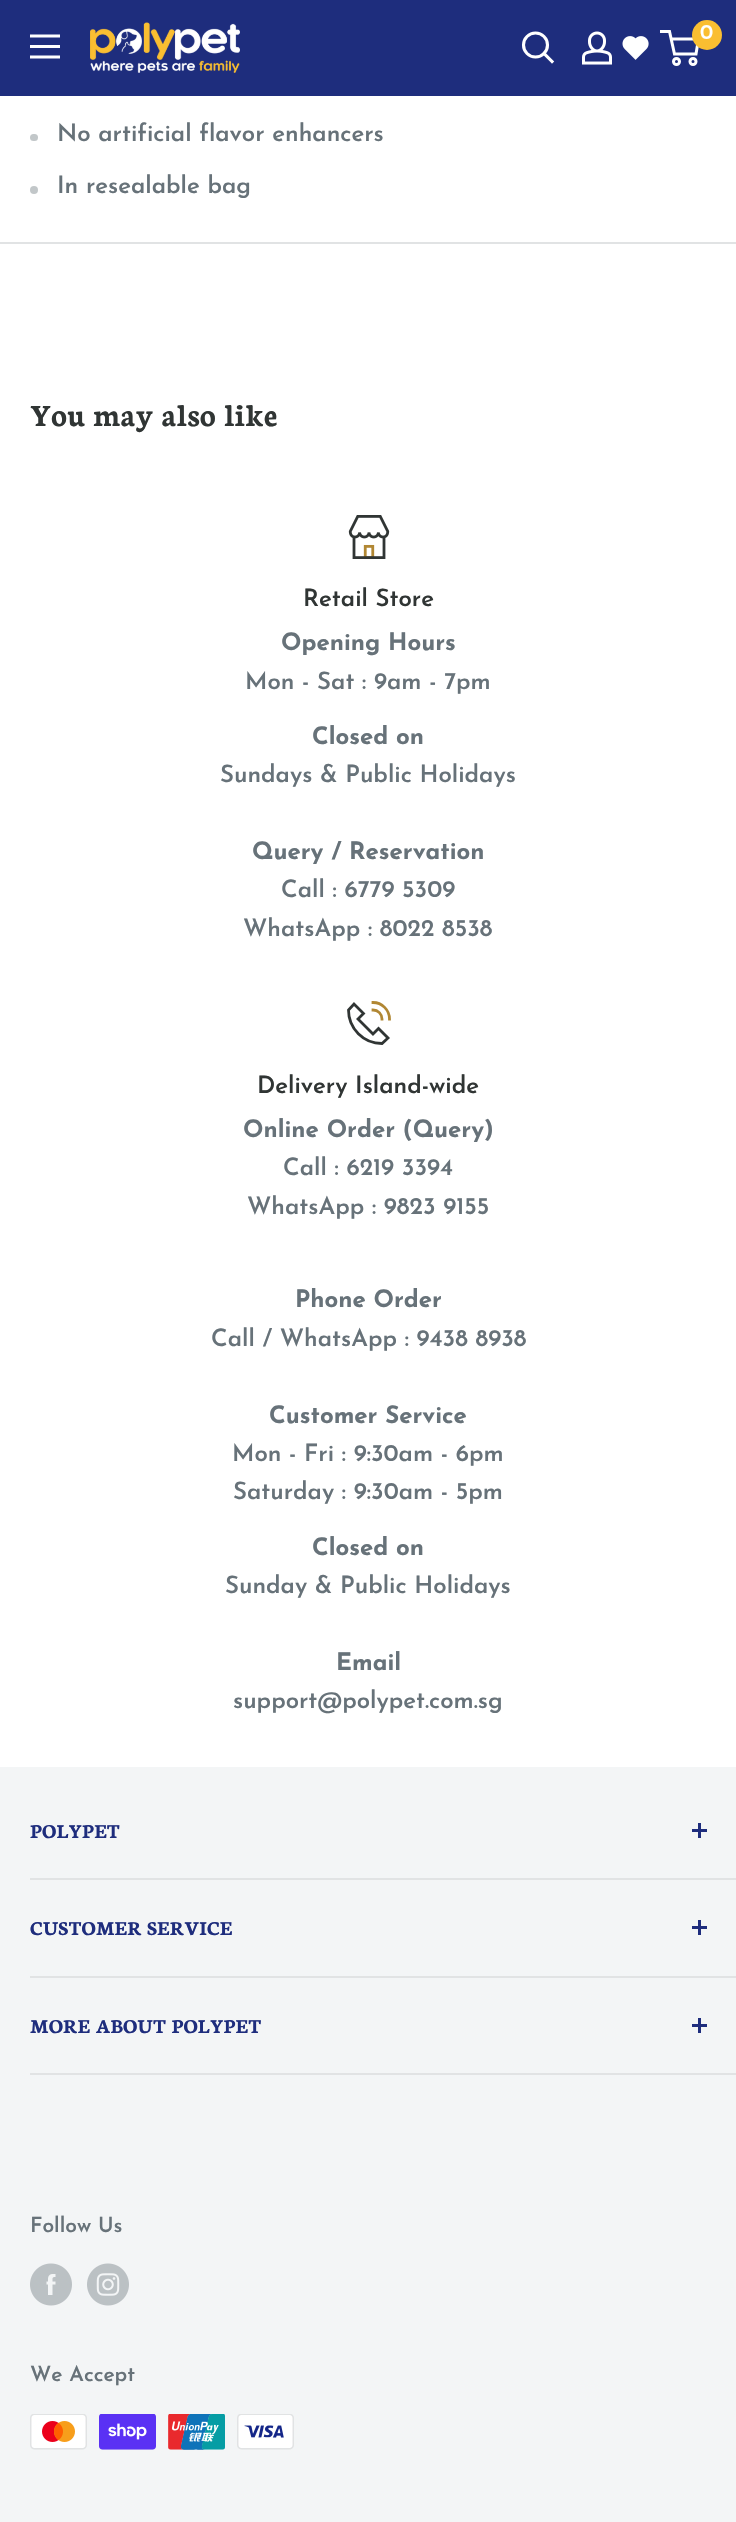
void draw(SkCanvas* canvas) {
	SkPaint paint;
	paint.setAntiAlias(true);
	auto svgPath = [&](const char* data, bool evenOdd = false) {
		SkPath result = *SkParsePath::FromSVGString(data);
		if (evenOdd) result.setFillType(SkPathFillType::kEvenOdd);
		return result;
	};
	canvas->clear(0xffffffff);
	paint.setColor(0xff1e2d7d);
	canvas->drawRect(SkRect::MakeXYWH(0, 0, 736, 96), paint);
	canvas->drawImageRect(SkImages::DeferredFromEncodedData(SkData::MakeFromFileName("img1.png")), SkRect::MakeXYWH(90, 22, 150, 51), SkSamplingOptions());
	paint.setStroke(true);
	paint.setStrokeWidth(3.1);
	paint.setStrokeCap(SkPaint::kSquare_Cap);
	paint.setColor(0xffffffff);
	canvas->drawPath(svgPath("M552 61.5L544 53.5"), paint);
	paint.setStrokeCap(SkPaint::kButt_Cap);
	canvas->drawCircle(535.5, 45, 12, paint);
	canvas->drawImageRect(SkImages::DeferredFromEncodedData(SkData::MakeFromFileName("img2.png")), SkRect::MakeXYWH(582, 31, 30, 34), SkSamplingOptions());
	canvas->drawImageRect(SkImages::DeferredFromEncodedData(SkData::MakeFromFileName("img3.png")), SkRect::MakeXYWH(622, 36, 27, 24), SkSamplingOptions());
	paint.setStrokeWidth(3);
	canvas->drawCircle(676.5, 61.5, 3, paint);
	canvas->drawCircle(693, 61.5, 3, paint);
	canvas->drawPath(svgPath("M671 39H698.5L696 54H674.5L669.5 31.5H660"), paint);
	paint.setStroke(false);
	paint.setColor(0xfffabe31);
	canvas->drawCircle(707, 35, 15, paint);
	SkFont f1(fontMgr->matchFamilyStyle("Josefin Sans", SkFontStyle(600, SkFontStyle::kNormal_Width, SkFontStyle::kUpright_Slant)), 21);
	f1.setSubpixel(true);
	paint.setColor(0xffffffff);
	canvas->drawString("0", 700, 39, f1, paint);
	canvas->drawImageRect(SkImages::DeferredFromEncodedData(SkData::MakeFromFileName("img4.png")), SkRect::MakeXYWH(30, 34, 30, 25), SkSamplingOptions());
	paint.setColor(0xffe1e3e4);
	canvas->drawRect(SkRect::MakeXYWH(0, 242, 736, 2), paint);
	paint.setColor(0xffc2c7c9);
	canvas->drawRoundRect(SkRect::MakeXYWH(30, 134, 8, 7), 3.5, 3.5, paint);
	SkFont f2(fontMgr->matchFamilyStyle("Josefin Sans", SkFontStyle(600, SkFontStyle::kNormal_Width, SkFontStyle::kUpright_Slant)), 24);
	f2.setSubpixel(true);
	paint.setColor(0xff677279);
	canvas->drawString("No artificial flavor enhancers", 57, 141, f2, paint);
	paint.setColor(0xffc2c7c9);
	canvas->drawCircle(34, 190, 4, paint);
	paint.setColor(0xff677279);
	canvas->drawString("In resealable bag", 57, 193, f2, paint);
	SkFont f3(fontMgr->matchFamilyStyle("Neuton", SkFontStyle::Bold()), 33);
	f3.setSubpixel(true);
	paint.setColor(0xff303534);
	canvas->drawString("You may also like", 30, 426, f3, paint);
	canvas->drawImageRect(SkImages::DeferredFromEncodedData(SkData::MakeFromFileName("img5.png")), SkRect::MakeXYWH(348, 515, 42, 45), SkSamplingOptions());
	canvas->drawString("Retail Store", 303, 606, f2, paint);
	SkFont f4(fontMgr->matchFamilyStyle("Josefin Sans", SkFontStyle::Bold()), 24);
	f4.setSubpixel(true);
	paint.setColor(0xff677279);
	canvas->drawString("Opening Hours", 281, 650, f4, paint);
	canvas->drawString("Mon - Sat : 9am - 7pm", 245, 689, f2, paint);
	canvas->drawString("Closed on", 312, 744, f4, paint);
	canvas->drawString("Sundays & Public Holidays", 220, 782, f2, paint);
	canvas->drawString("Query / Reservation", 252, 859, f4, paint);
	canvas->drawString("Call : 6779 5309", 281, 897, f2, paint);
	canvas->drawString("WhatsApp : 8022 8538", 243, 936, f2, paint);
	paint.setStroke(true);
	paint.setStrokeWidth(2.8);
	paint.setStrokeCap(SkPaint::kSquare_Cap);
	paint.setColor(0xff303534);
	canvas->drawPath(svgPath("M378.5 1028.5L373 1034L358 1019L363.5 1013.5L354 1004L348.5 1010C348.5 1028.5 363.5 1043.5 382 1043.5L388 1038Z"), paint);
	paint.setColor(0xffb18733);
	canvas->drawPath(svgPath("M373 1002.5C382 1002.5 389.5 1010 389.5 1019M373 1010C378 1010 382 1014 382 1019"), paint);
	paint.setStroke(false);
	paint.setColor(0xff303534);
	canvas->drawString("Delivery Island-wide", 257, 1093, f2, paint);
	paint.setColor(0xff677279);
	canvas->drawString("Online Order (Query)", 243, 1137, f4, paint);
	canvas->drawString("Call : 6219 3394", 283, 1175, f2, paint);
	canvas->drawString("WhatsApp : 9823 9155", 247, 1214, f2, paint);
	canvas->drawString("Phone Order", 295, 1307, f4, paint);
	canvas->drawString("Call / WhatsApp : 9438 8938", 211, 1346, f2, paint);
	canvas->drawString("Customer Service", 269, 1423, f4, paint);
	canvas->drawString("Mon - Fri : 9:30am - 6pm", 232, 1461, f2, paint);
	canvas->drawString("Saturday : 9:30am - 5pm", 233, 1499, f2, paint);
	canvas->drawString("Closed on", 312, 1555, f4, paint);
	canvas->drawString("Sunday & Public Holidays", 225, 1593, f2, paint);
	canvas->drawString("Email", 336, 1670, f4, paint);
	canvas->drawString("support@polypet.com.sg", 233, 1708, f2, paint);
	paint.setColor(0xfff3f5f6);
	canvas->drawRect(SkRect::MakeXYWH(0, 1767, 736, 755), paint);
	paint.setColor(0xffe1e3e4);
	canvas->drawRect(SkRect::MakeXYWH(30, 1878, 706, 2), paint);
	SkFont f5(fontMgr->matchFamilyStyle("Neuton", SkFontStyle::Bold()), 21);
	f5.setSubpixel(true);
	paint.setColor(0xff1e2d7d);
	canvas->drawString("POLYPET", 30, 1838, f5, paint);
	canvas->drawRect(SkRect::MakeXYWH(698, 1823, 3, 15), paint);
	canvas->drawRect(SkRect::MakeXYWH(692, 1829, 15, 3), paint);
	paint.setColor(0xffe1e3e4);
	canvas->drawRect(SkRect::MakeXYWH(30, 1976, 706, 2), paint);
	paint.setColor(0xff1e2d7d);
	canvas->drawString("CUSTOMER SERVICE", 30, 1935, f5, paint);
	canvas->drawRect(SkRect::MakeXYWH(698, 1920, 3, 15), paint);
	canvas->drawRect(SkRect::MakeXYWH(692, 1926, 15, 3), paint);
	paint.setColor(0xffe1e3e4);
	canvas->drawRect(SkRect::MakeXYWH(30, 2073, 706, 2), paint);
	paint.setColor(0xff1e2d7d);
	canvas->drawString("MORE ABOUT POLYPET", 30, 2033, f5, paint);
	canvas->drawRect(SkRect::MakeXYWH(698, 2018, 3, 15), paint);
	canvas->drawRect(SkRect::MakeXYWH(692, 2024, 15, 3), paint);
	paint.setColor(0xff677279);
	canvas->drawString("Follow Us", 30, 2232, f1, paint);
	canvas->drawImageRect(SkImages::DeferredFromEncodedData(SkData::MakeFromFileName("img6.png")), SkRect::MakeXYWH(30, 2263, 42, 43), SkSamplingOptions());
	canvas->drawImageRect(SkImages::DeferredFromEncodedData(SkData::MakeFromFileName("img7.png")), SkRect::MakeXYWH(87, 2263, 42, 43), SkSamplingOptions());
	canvas->drawString("We Accept", 30, 2381, f1, paint);
	canvas->drawImageRect(SkImages::DeferredFromEncodedData(SkData::MakeFromFileName("img8.png")), SkRect::MakeXYWH(30, 2414, 57, 36), SkSamplingOptions());
	canvas->drawImageRect(SkImages::DeferredFromEncodedData(SkData::MakeFromFileName("img9.png")), SkRect::MakeXYWH(99, 2414, 57, 36), SkSamplingOptions());
	canvas->drawImageRect(SkImages::DeferredFromEncodedData(SkData::MakeFromFileName("img10.png")), SkRect::MakeXYWH(168, 2414, 57, 36), SkSamplingOptions());
	canvas->drawImageRect(SkImages::DeferredFromEncodedData(SkData::MakeFromFileName("img11.png")), SkRect::MakeXYWH(237, 2414, 57, 36), SkSamplingOptions());
}
